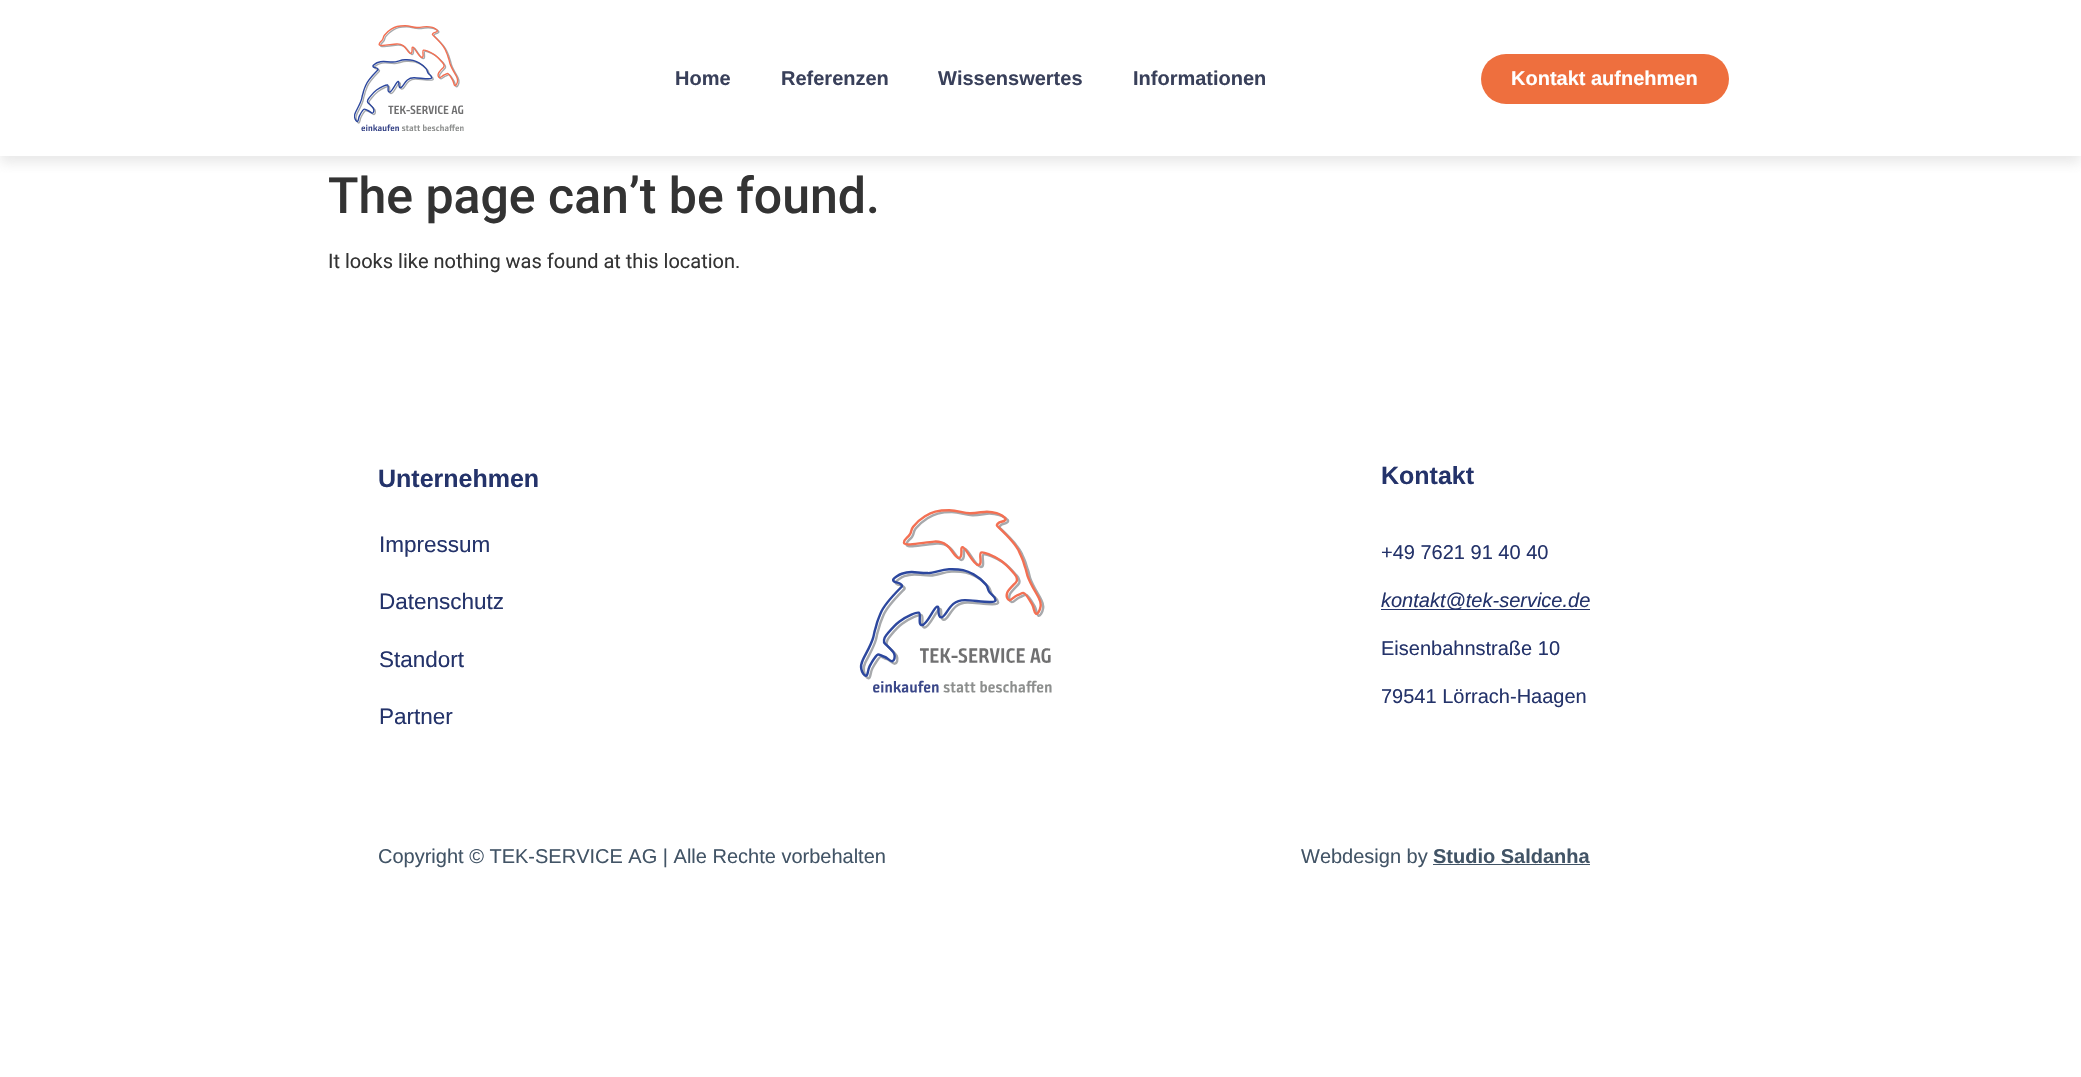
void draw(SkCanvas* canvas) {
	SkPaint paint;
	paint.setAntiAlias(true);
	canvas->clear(0xffffffff);
	canvas->save();
	canvas->clipRect(SkRect::MakeXYWH(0, 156, 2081, 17));
	paint.setColor(0x80d2d2d2);
	paint.setMaskFilter(SkMaskFilter::MakeBlur(kNormal_SkBlurStyle, 6));
	canvas->drawRect(SkRect::MakeXYWH(0, 6, 2081, 157), paint);
	paint.setMaskFilter(nullptr);
	canvas->restore();
	canvas->drawImageRect(SkImages::DeferredFromEncodedData(SkData::MakeFromFileName("img1.png")), SkRect::MakeXYWH(354, 25, 110, 106), SkSamplingOptions());
	SkFont f1(fontMgr->matchFamilyStyle("Liberation Sans", SkFontStyle::Bold()), 20);
	f1.setSubpixel(true);
	paint.setColor(0xff39405a);
	canvas->drawString("Home", 675, 85, f1, paint);
	canvas->drawString("Referenzen", 781, 85, f1, paint);
	canvas->drawString("Wissenswertes", 938, 85, f1, paint);
	canvas->drawString("Informationen", 1133, 85, f1, paint);
	paint.setColor(0xffee6f3e);
	canvas->drawRoundRect(SkRect::MakeXYWH(1481, 54, 248, 50), 25, 25, paint);
	paint.setColor(0xffffffff);
	canvas->drawString("Kontakt aufnehmen", 1511, 85, f1, paint);
	SkFont f2(fontMgr->matchFamilyStyle("Roboto", SkFontStyle(500, SkFontStyle::kNormal_Width, SkFontStyle::kUpright_Slant)), 50);
	f2.setSubpixel(true);
	paint.setColor(0xff333333);
	canvas->drawString("The page can’t be found.", 328, 213, f2, paint);
	SkFont f3(fontMgr->matchFamilyStyle("Roboto", SkFontStyle::Normal()), 20);
	f3.setSubpixel(true);
	canvas->drawString("It looks like nothing was found at this location.", 328, 268, f3, paint);
	SkFont f4(fontMgr->matchFamilyStyle("Liberation Sans", SkFontStyle::Bold()), 25);
	f4.setSubpixel(true);
	paint.setColor(0xff24336a);
	canvas->drawString("Unternehmen", 378, 487, f4, paint);
	SkFont f5(fontMgr->matchFamilyStyle("Liberation Sans", SkFontStyle::Normal()), 22.5);
	f5.setSubpixel(true);
	canvas->drawString("Impressum", 379, 552, f5, paint);
	canvas->drawString("Datenschutz", 379, 609, f5, paint);
	canvas->drawString("Standort", 379, 667, f5, paint);
	canvas->drawString("Partner", 379, 724, f5, paint);
	canvas->drawImageRect(SkImages::DeferredFromEncodedData(SkData::MakeFromFileName("img2.png")), SkRect::MakeXYWH(859, 509, 193, 184), SkSamplingOptions());
	canvas->drawString("Kontakt", 1381, 484, f4, paint);
	SkFont f6(fontMgr->matchFamilyStyle("Liberation Sans", SkFontStyle::Normal()), 20);
	f6.setSubpixel(true);
	canvas->drawString("+49 7621 91 40 40", 1381, 559, f6, paint);
	canvas->drawRect(SkRect::MakeXYWH(1381, 609, 209, 1), paint);
	SkFont f7(fontMgr->matchFamilyStyle("Liberation Sans", SkFontStyle::Italic()), 20);
	f7.setSubpixel(true);
	canvas->drawString("kontakt@tek-service.de", 1381, 607, f7, paint);
	canvas->drawString("Eisenbahnstraße 10", 1381, 655, f6, paint);
	canvas->drawString("79541 Lörrach-Haagen", 1381, 703, f6, paint);
	paint.setColor(0xff425466);
	canvas->drawString("Copyright © TEK-SERVICE AG | Alle Rechte vorbehalten", 378, 863, f6, paint);
	canvas->drawString("Webdesign by", 1301, 863, f6, paint);
	canvas->drawString("Studio Saldanha", 1433, 863, f1, paint);
	canvas->drawRect(SkRect::MakeXYWH(1433, 864, 157, 1), paint);
}
